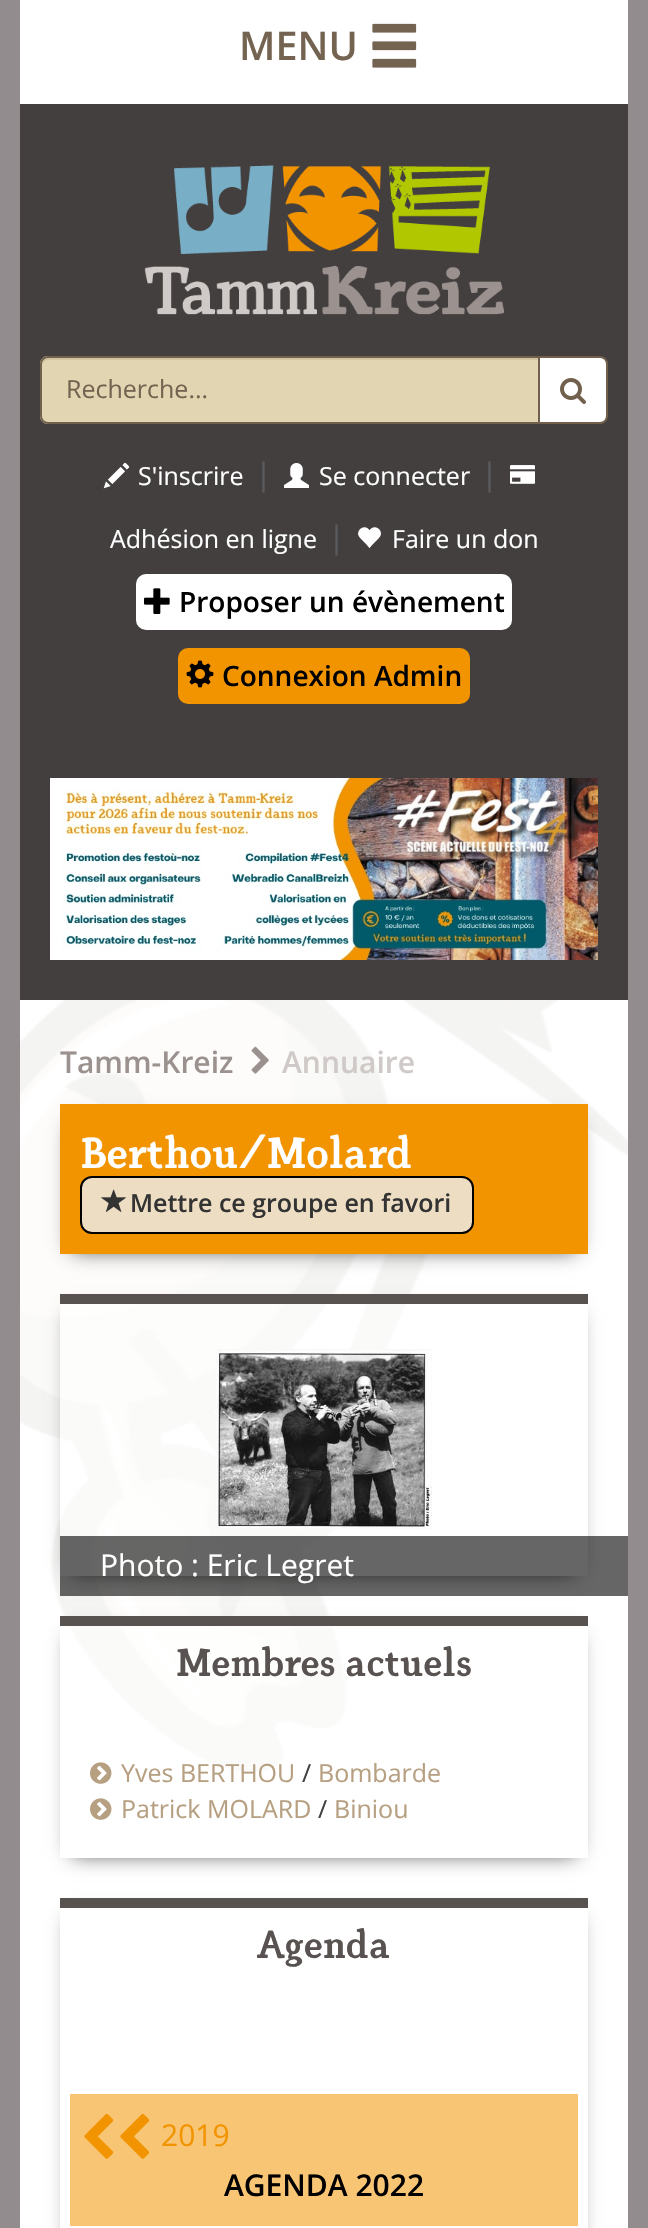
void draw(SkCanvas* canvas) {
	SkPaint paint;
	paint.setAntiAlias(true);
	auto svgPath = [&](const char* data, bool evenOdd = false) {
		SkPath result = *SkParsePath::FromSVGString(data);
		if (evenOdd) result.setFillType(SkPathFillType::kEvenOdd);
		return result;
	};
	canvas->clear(0xff938c8e);
	paint.setColor(0xffffffff);
	canvas->drawRect(SkRect::MakeXYWH(20, 0, 608, 104), paint);
	SkFont f1(fontMgr->matchFamilyStyle("Open Sans", SkFontStyle(600, SkFontStyle::kNormal_Width, SkFontStyle::kUpright_Slant)), 39.5);
	f1.setSubpixel(true);
	paint.setColor(0xff746350);
	canvas->drawString("MENU", 239, 60, f1, paint);
	canvas->drawImageRect(SkImages::DeferredFromEncodedData(SkData::MakeFromFileName("img1.png")), SkRect::MakeXYWH(372, 23, 45, 45), SkSamplingOptions());
	paint.setColor(0xffffffff);
	canvas->drawRect(SkRect::MakeXYWH(20, 1000, 608, 1228), paint);
	paint.setColor(0xff433f3f);
	canvas->drawRect(SkRect::MakeXYWH(20, 104, 608, 896), paint);
	canvas->drawImageRect(SkImages::DeferredFromEncodedData(SkData::MakeFromFileName("img2.png")), SkRect::MakeXYWH(144, 165, 360, 150), SkSamplingOptions());
	paint.setColor(0xffffffff);
	canvas->drawPath(svgPath("M539 357H600C604 357 607 360 607 364V416C607 420 604 423 600 423H539Z"), paint);
	paint.setStroke(true);
	paint.setStrokeWidth(2);
	paint.setColor(0xff71604c);
	canvas->drawPath(svgPath("M539 357H600C604 357 607 360 607 364V416C607 420 604 423 600 423H539Z"), paint);
	paint.setStroke(false);
	paint.setColor(0xffe2d5b1);
	canvas->drawPath(svgPath("M48 356H540V424H48C43.5 424 40 420.5 40 416V364C40 359.5 43.5 356 48 356Z"), paint);
	paint.setColor(0xffd1c5a4);
	canvas->drawPath(svgPath("M48 360H538V358H48C43 358 42 362 42 366C42 363 45 360 48 360Z"), paint);
	paint.setStroke(true);
	paint.setColor(0xff71604c);
	canvas->drawPath(svgPath("M48 357H539V423H48C44 423 41 420 41 416V364C41 360 44 357 48 357Z"), paint);
	SkFont f2(fontMgr->matchFamilyStyle("Open Sans", SkFontStyle::Normal()), 25);
	f2.setSubpixel(true);
	paint.setStroke(false);
	paint.setColor(0xff746350);
	canvas->drawString("Recherche...", 66, 398, f2, paint);
	canvas->drawImageRect(SkImages::DeferredFromEncodedData(SkData::MakeFromFileName("img3.png")), SkRect::MakeXYWH(560, 378, 26, 26), SkSamplingOptions());
	canvas->drawImageRect(SkImages::DeferredFromEncodedData(SkData::MakeFromFileName("img4.png")), SkRect::MakeXYWH(103, 462, 27, 27), SkSamplingOptions());
	paint.setColor(0xffffffff);
	canvas->drawString("S'inscrire", 138, 485, f2, paint);
	SkFont f3(fontMgr->matchFamilyStyle("Open Sans", SkFontStyle::Normal()), 31);
	f3.setSubpixel(true);
	paint.setColor(0xff595b5e);
	canvas->drawString("|", 255, 485, f3, paint);
	canvas->drawImageRect(SkImages::DeferredFromEncodedData(SkData::MakeFromFileName("img5.png")), SkRect::MakeXYWH(284, 463, 25, 25), SkSamplingOptions());
	paint.setColor(0xffffffff);
	canvas->drawString("Se connecter", 319, 485, f2, paint);
	paint.setColor(0xff595b5e);
	canvas->drawString("|", 481, 485, f3, paint);
	canvas->drawImageRect(SkImages::DeferredFromEncodedData(SkData::MakeFromFileName("img6.png")), SkRect::MakeXYWH(510, 465, 25, 19), SkSamplingOptions());
	paint.setColor(0xffffffff);
	canvas->drawString("Adhésion en ligne", 110, 548, f2, paint);
	paint.setColor(0xff595b5e);
	canvas->drawString("|", 328, 548, f3, paint);
	canvas->drawImageRect(SkImages::DeferredFromEncodedData(SkData::MakeFromFileName("img7.png")), SkRect::MakeXYWH(358, 527, 23, 22), SkSamplingOptions());
	paint.setColor(0xffffffff);
	canvas->drawString("Faire un don", 392, 548, f2, paint);
	canvas->drawRoundRect(SkRect::MakeXYWH(136, 574, 376, 56), 10, 10, paint);
	canvas->drawImageRect(SkImages::DeferredFromEncodedData(SkData::MakeFromFileName("img8.png")), SkRect::MakeXYWH(144, 588, 26, 26), SkSamplingOptions());
	SkFont f4(fontMgr->matchFamilyStyle("Open Sans", SkFontStyle(600, SkFontStyle::kNormal_Width, SkFontStyle::kUpright_Slant)), 28);
	f4.setSubpixel(true);
	paint.setColor(0xff000000);
	canvas->drawString("Proposer un évènement", 179, 612, f4, paint);
	paint.setColor(0xfff29400);
	canvas->drawRoundRect(SkRect::MakeXYWH(178, 648, 292, 56), 10, 10, paint);
	canvas->drawImageRect(SkImages::DeferredFromEncodedData(SkData::MakeFromFileName("img9.png")), SkRect::MakeXYWH(186, 660, 28, 28), SkSamplingOptions());
	paint.setColor(0xff000000);
	canvas->drawString("Connexion Admin", 222, 686, f4, paint);
	canvas->drawImageRect(SkImages::DeferredFromEncodedData(SkData::MakeFromFileName("img10.png")), SkRect::MakeXYWH(50, 778, 548, 182), SkSamplingOptions());
	canvas->drawImageRect(SkImages::DeferredFromEncodedData(SkData::MakeFromFileName("img11.png")), SkRect::MakeXYWH(20, 1000, 608, 772), SkSamplingOptions());
	SkFont f5(fontMgr->matchFamilyStyle("Open Sans", SkFontStyle(600, SkFontStyle::kNormal_Width, SkFontStyle::kUpright_Slant)), 30);
	f5.setSubpixel(true);
	paint.setColor(0xff9b928f);
	canvas->drawString("Tamm-Kreiz", 60, 1073, f5, paint);
	canvas->drawImageRect(SkImages::DeferredFromEncodedData(SkData::MakeFromFileName("img12.png")), SkRect::MakeXYWH(251, 1046, 18, 28), SkSamplingOptions());
	paint.setColor(0xffcfc9c7);
	canvas->drawString("Annuaire", 282, 1073, f5, paint);
	paint.setColor(0xbf000000);
	paint.setMaskFilter(SkMaskFilter::MakeBlur(kNormal_SkBlurStyle, 10));
	canvas->drawRect(SkRect::MakeXYWH(72, 1124, 504, 126), paint);
	paint.setMaskFilter(nullptr);
	paint.setColor(0xfff29400);
	canvas->drawRect(SkRect::MakeXYWH(60, 1104, 528, 150), paint);
	SkFont f6(fontMgr->matchFamilyStyle("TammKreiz", SkFontStyle(500, SkFontStyle::kNormal_Width, SkFontStyle::kUpright_Slant)), 47.5);
	f6.setSubpixel(true);
	paint.setColor(0xffffffff);
	canvas->drawString("Berthou/Molard", 80, 1168, f6, paint);
	paint.setColor(0xffedddc3);
	canvas->drawRoundRect(SkRect::MakeXYWH(81, 1177, 392, 56), 11, 11, paint);
	paint.setStroke(true);
	paint.setColor(0xff000000);
	canvas->drawRoundRect(SkRect::MakeXYWH(81, 1177, 392, 56), 11, 11, paint);
	canvas->drawImageRect(SkImages::DeferredFromEncodedData(SkData::MakeFromFileName("img13.png")), SkRect::MakeXYWH(101, 1189, 25, 23), SkSamplingOptions());
	SkFont f7(fontMgr->matchFamilyStyle("Open Sans", SkFontStyle(600, SkFontStyle::kNormal_Width, SkFontStyle::kUpright_Slant)), 25);
	f7.setSubpixel(true);
	paint.setStroke(false);
	paint.setColor(0xff333333);
	canvas->drawString("Mettre ce groupe en favori", 130, 1212, f7, paint);
	canvas->save();
	canvas->clipPath(svgPath("M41 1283H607V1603H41ZM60 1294H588V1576H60Z", true), true);
	paint.setColor(0xbf000000);
	paint.setMaskFilter(SkMaskFilter::MakeBlur(kNormal_SkBlurStyle, 10));
	canvas->drawRect(SkRect::MakeXYWH(72, 1314, 504, 258), paint);
	paint.setMaskFilter(nullptr);
	canvas->restore();
	paint.setColor(0x80ffffff);
	canvas->drawRect(SkRect::MakeXYWH(60, 1304, 346, 272), paint);
	paint.setColor(0xff585251);
	canvas->drawRect(SkRect::MakeXYWH(60, 1294, 528, 10), paint);
	canvas->drawImageRect(SkImages::DeferredFromEncodedData(SkData::MakeFromFileName("img14.png")), SkRect::MakeXYWH(216, 1349, 216, 180), SkSamplingOptions());
	paint.setColor(0x99000000);
	canvas->drawRect(SkRect::MakeXYWH(60, 1536, 568, 60), paint);
	SkFont f8(fontMgr->matchFamilyStyle("Open Sans", SkFontStyle::Normal()), 30);
	f8.setSubpixel(true);
	paint.setColor(0xffffffff);
	canvas->drawString("Photo : Eric Legret", 100, 1576, f8, paint);
	canvas->save();
	canvas->clipPath(svgPath("M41 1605H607V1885H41ZM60 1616H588V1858H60Z", true), true);
	paint.setColor(0xbf000000);
	paint.setMaskFilter(SkMaskFilter::MakeBlur(kNormal_SkBlurStyle, 10));
	canvas->drawRect(SkRect::MakeXYWH(72, 1636, 504, 218), paint);
	paint.setMaskFilter(nullptr);
	canvas->restore();
	paint.setColor(0x80ffffff);
	canvas->drawRect(SkRect::MakeXYWH(70, 1626, 276, 146), paint);
	paint.setColor(0xff585251);
	canvas->drawRect(SkRect::MakeXYWH(60, 1616, 528, 10), paint);
	SkFont f9(fontMgr->matchFamilyStyle("TammKreiz", SkFontStyle(500, SkFontStyle::kNormal_Width, SkFontStyle::kUpright_Slant)), 42.5);
	f9.setSubpixel(true);
	canvas->drawString("Membres actuels", 176, 1676, f9, paint);
	canvas->drawImageRect(SkImages::DeferredFromEncodedData(SkData::MakeFromFileName("img15.png")), SkRect::MakeXYWH(90, 1762, 22, 22), SkSamplingOptions());
	paint.setColor(0xffb7a082);
	canvas->drawString("Yves BERTHOU", 121, 1782, f2, paint);
	paint.setColor(0xff433f3f);
	canvas->drawString("/", 302, 1782, f2, paint);
	paint.setColor(0xffb7a082);
	canvas->drawString("Bombarde", 318, 1782, f2, paint);
	canvas->drawImageRect(SkImages::DeferredFromEncodedData(SkData::MakeFromFileName("img15.png")), SkRect::MakeXYWH(90, 1798, 22, 22), SkSamplingOptions());
	canvas->drawString("Patrick MOLARD", 121, 1818, f2, paint);
	paint.setColor(0xff433f3f);
	canvas->drawString("/", 318, 1818, f2, paint);
	paint.setColor(0xffb7a082);
	canvas->drawString("Biniou", 334, 1818, f2, paint);
	canvas->save();
	canvas->clipPath(svgPath("M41 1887H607V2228H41ZM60 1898H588V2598H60Z", true), true);
	paint.setColor(0xbf000000);
	paint.setMaskFilter(SkMaskFilter::MakeBlur(kNormal_SkBlurStyle, 10));
	canvas->drawRect(SkRect::MakeXYWH(72, 1918, 504, 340), paint);
	paint.setMaskFilter(nullptr);
	canvas->restore();
	paint.setColor(0xff585251);
	canvas->drawRect(SkRect::MakeXYWH(60, 1898, 528, 10), paint);
	canvas->drawString("Agenda", 257, 1958, f9, paint);
	paint.setColor(0xfff8c574);
	canvas->drawRect(SkRect::MakeXYWH(70, 2094, 508, 132), paint);
	canvas->drawImageRect(SkImages::DeferredFromEncodedData(SkData::MakeFromFileName("img16.png")), SkRect::MakeXYWH(84, 2113, 30, 46), SkSamplingOptions());
	canvas->drawImageRect(SkImages::DeferredFromEncodedData(SkData::MakeFromFileName("img16.png")), SkRect::MakeXYWH(120, 2113, 30, 46), SkSamplingOptions());
	paint.setColor(0xfff29400);
	canvas->drawString("2019", 161, 2146, f8, paint);
	paint.setColor(0xff000000);
	canvas->drawString("AGENDA 2022", 224, 2196, f5, paint);
}
